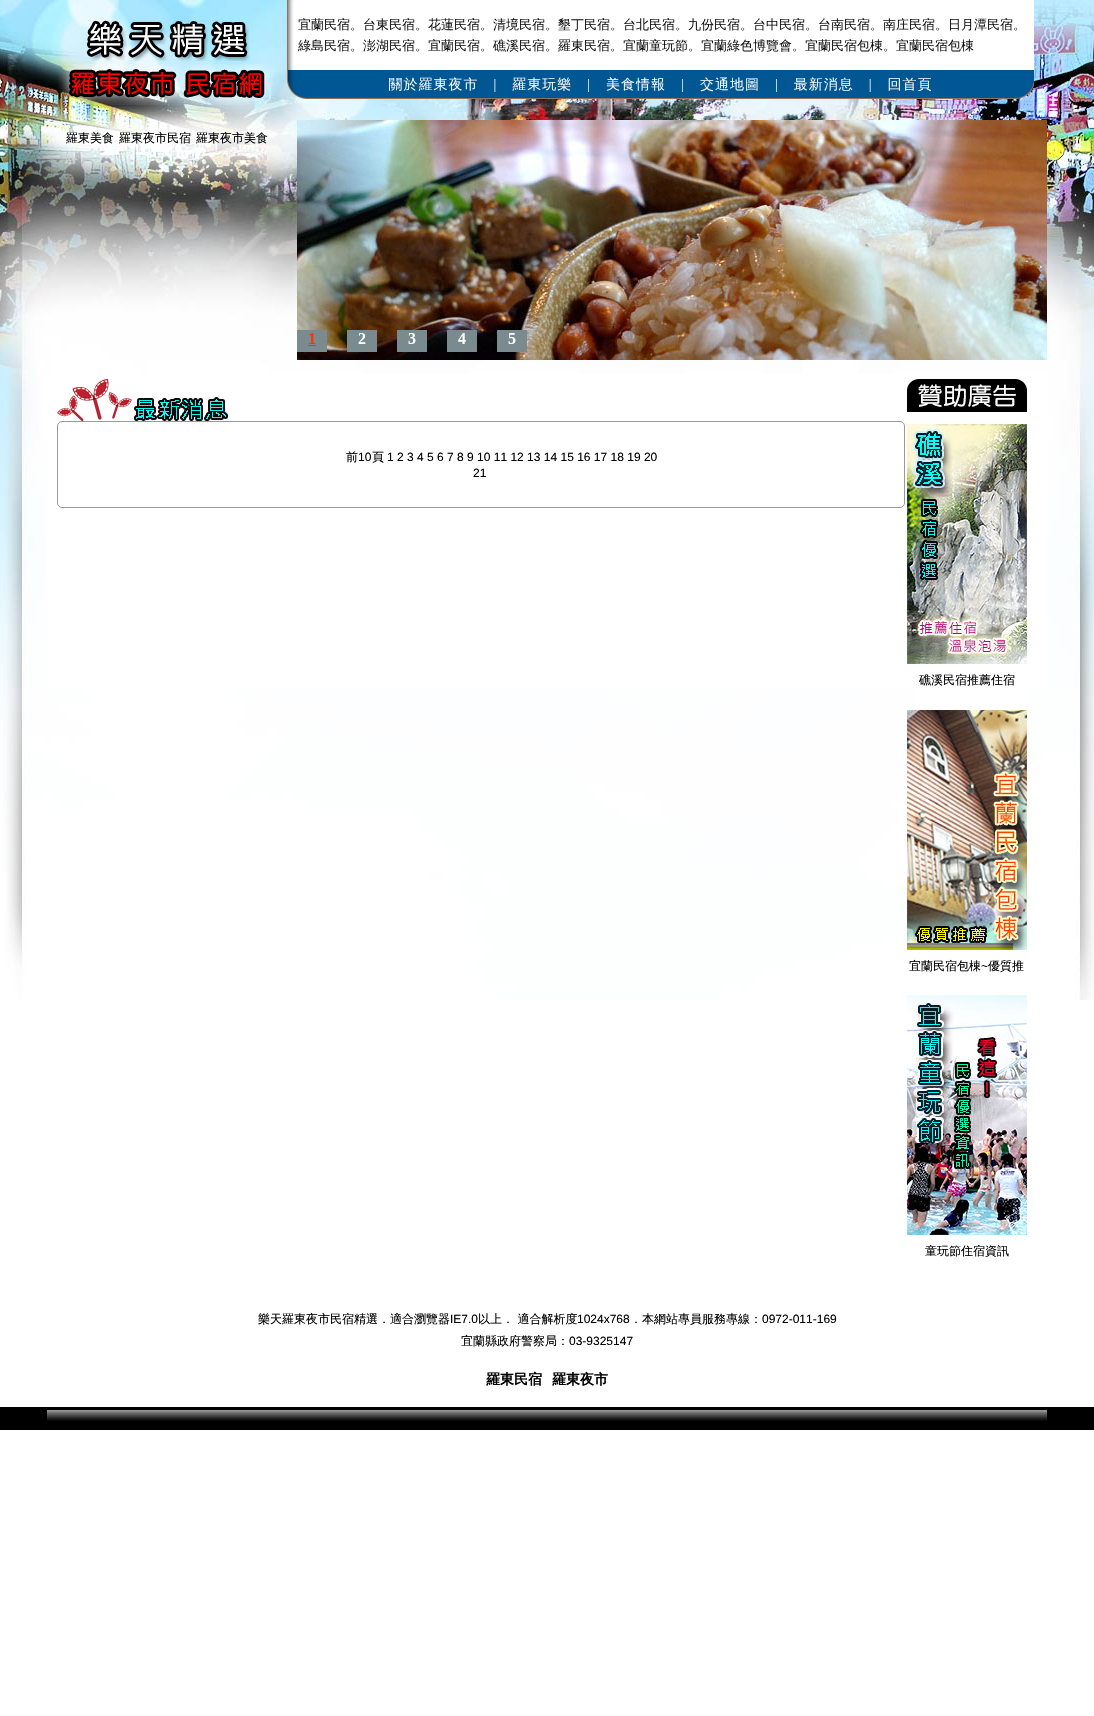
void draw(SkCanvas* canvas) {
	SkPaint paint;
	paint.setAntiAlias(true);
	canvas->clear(0xffffffff);
	canvas->drawImageRect(SkImages::DeferredFromEncodedData(SkData::MakeFromFileName("img1.png")), SkRect::MakeXYWH(0, 0, 1094, 1000), SkSamplingOptions());
	canvas->drawImageRect(SkImages::DeferredFromEncodedData(SkData::MakeFromFileName("img2.png")), SkRect::MakeXYWH(287, 0, 747, 99), SkSamplingOptions());
	canvas->drawImageRect(SkImages::DeferredFromEncodedData(SkData::MakeFromFileName("img3.png")), SkRect::MakeXYWH(58, 20, 216, 85), SkSamplingOptions());
	SkFont f1(fontMgr->matchFamilyStyle("WenQuanYi Zen Hei", SkFontStyle(500, SkFontStyle::kNormal_Width, SkFontStyle::kUpright_Slant)), 12);
	f1.setSubpixel(true);
	paint.setColor(0xff000000);
	canvas->drawString("羅東美食", 66, 142, f1, paint);
	canvas->drawString("羅東夜市民宿", 119, 142, f1, paint);
	canvas->drawString("羅東夜市美食", 196, 142, f1, paint);
	canvas->drawImageRect(SkImages::DeferredFromEncodedData(SkData::MakeFromFileName("img4.png")), SkRect::MakeXYWH(297, 120, 750, 240), SkSamplingOptions());
	paint.setColor(0xffffffff);
	canvas->drawRect(SkRect::MakeXYWH(803, 360, 56, 14), paint);
	canvas->drawRect(SkRect::MakeXYWH(47, 374, 1000, 314), paint);
	canvas->drawImageRect(SkImages::DeferredFromEncodedData(SkData::MakeFromFileName("img5.png")), SkRect::MakeXYWH(57, 379, 75, 42), SkSamplingOptions());
	canvas->drawImageRect(SkImages::DeferredFromEncodedData(SkData::MakeFromFileName("img6.png")), SkRect::MakeXYWH(132, 397, 96, 24), SkSamplingOptions());
	paint.setStroke(true);
	paint.setStrokeWidth(1);
	paint.setColor(0xff999999);
	canvas->drawRoundRect(SkRect::MakeXYWH(57.5, 421.5, 847, 86), 4.5, 4.5, paint);
	paint.setStroke(false);
	paint.setColor(0xff000000);
	canvas->drawString("前", 346, 461, f1, paint);
	SkFont f2(fontMgr->matchFamilyStyle("Liberation Sans", SkFontStyle::Normal()), 12);
	f2.setSubpixel(true);
	canvas->drawString("10", 358, 461, f2, paint);
	canvas->drawString("頁", 372, 461, f1, paint);
	canvas->drawString("1 2 3 4 5 6 7 8 9 10 11 12 13 14 15 16 17 18 19 20", 387, 461, f2, paint);
	canvas->drawString("21", 473, 477, f2, paint);
	canvas->drawImageRect(SkImages::DeferredFromEncodedData(SkData::MakeFromFileName("img7.png")), SkRect::MakeXYWH(907, 379, 120, 33), SkSamplingOptions());
	canvas->drawImageRect(SkImages::DeferredFromEncodedData(SkData::MakeFromFileName("img8.png")), SkRect::MakeXYWH(907, 424, 120, 240), SkSamplingOptions());
	canvas->drawString("礁溪民宿推薦住宿", 919, 684, f1, paint);
	canvas->drawImageRect(SkImages::DeferredFromEncodedData(SkData::MakeFromFileName("img9.png")), SkRect::MakeXYWH(907, 710, 120, 240), SkSamplingOptions());
	canvas->drawString("宜蘭民宿包棟", 909, 970, f1, paint);
	canvas->drawString("~", 981, 970, f2, paint);
	canvas->drawString("優質推", 988, 970, f1, paint);
	canvas->drawImageRect(SkImages::DeferredFromEncodedData(SkData::MakeFromFileName("img10.png")), SkRect::MakeXYWH(907, 995, 120, 240), SkSamplingOptions());
	canvas->drawString("童玩節住宿資訊", 925, 1255, f1, paint);
	canvas->drawString("樂天羅東夜市民宿精選．適合瀏覽器", 258, 1323, f1, paint);
	canvas->drawString("IE7.0", 450, 1323, f2, paint);
	canvas->drawString("以上． 適合解析度", 478, 1323, f1, paint);
	canvas->drawString("1024x768", 577, 1323, f2, paint);
	canvas->drawString("．本網站專員服務專線：", 630, 1323, f1, paint);
	canvas->drawString("0972-011-169", 762, 1323, f2, paint);
	canvas->drawString("宜蘭縣政府警察局：", 461, 1345, f1, paint);
	canvas->drawString("03-9325147", 569, 1345, f2, paint);
	SkFont f3(fontMgr->matchFamilyStyle("WenQuanYi Zen Hei", SkFontStyle::Bold()), 14);
	f3.setSubpixel(true);
	canvas->drawString("羅東民宿", 486, 1384, f3, paint);
	canvas->drawString("羅東夜市", 552, 1384, f3, paint);
	canvas->drawRect(SkRect::MakeXYWH(0, 1407, 1094, 23), paint);
	canvas->drawImageRect(SkImages::DeferredFromEncodedData(SkData::MakeFromFileName("img11.png")), SkRect::MakeXYWH(47, 1410, 1000, 11), SkSamplingOptions());
}
